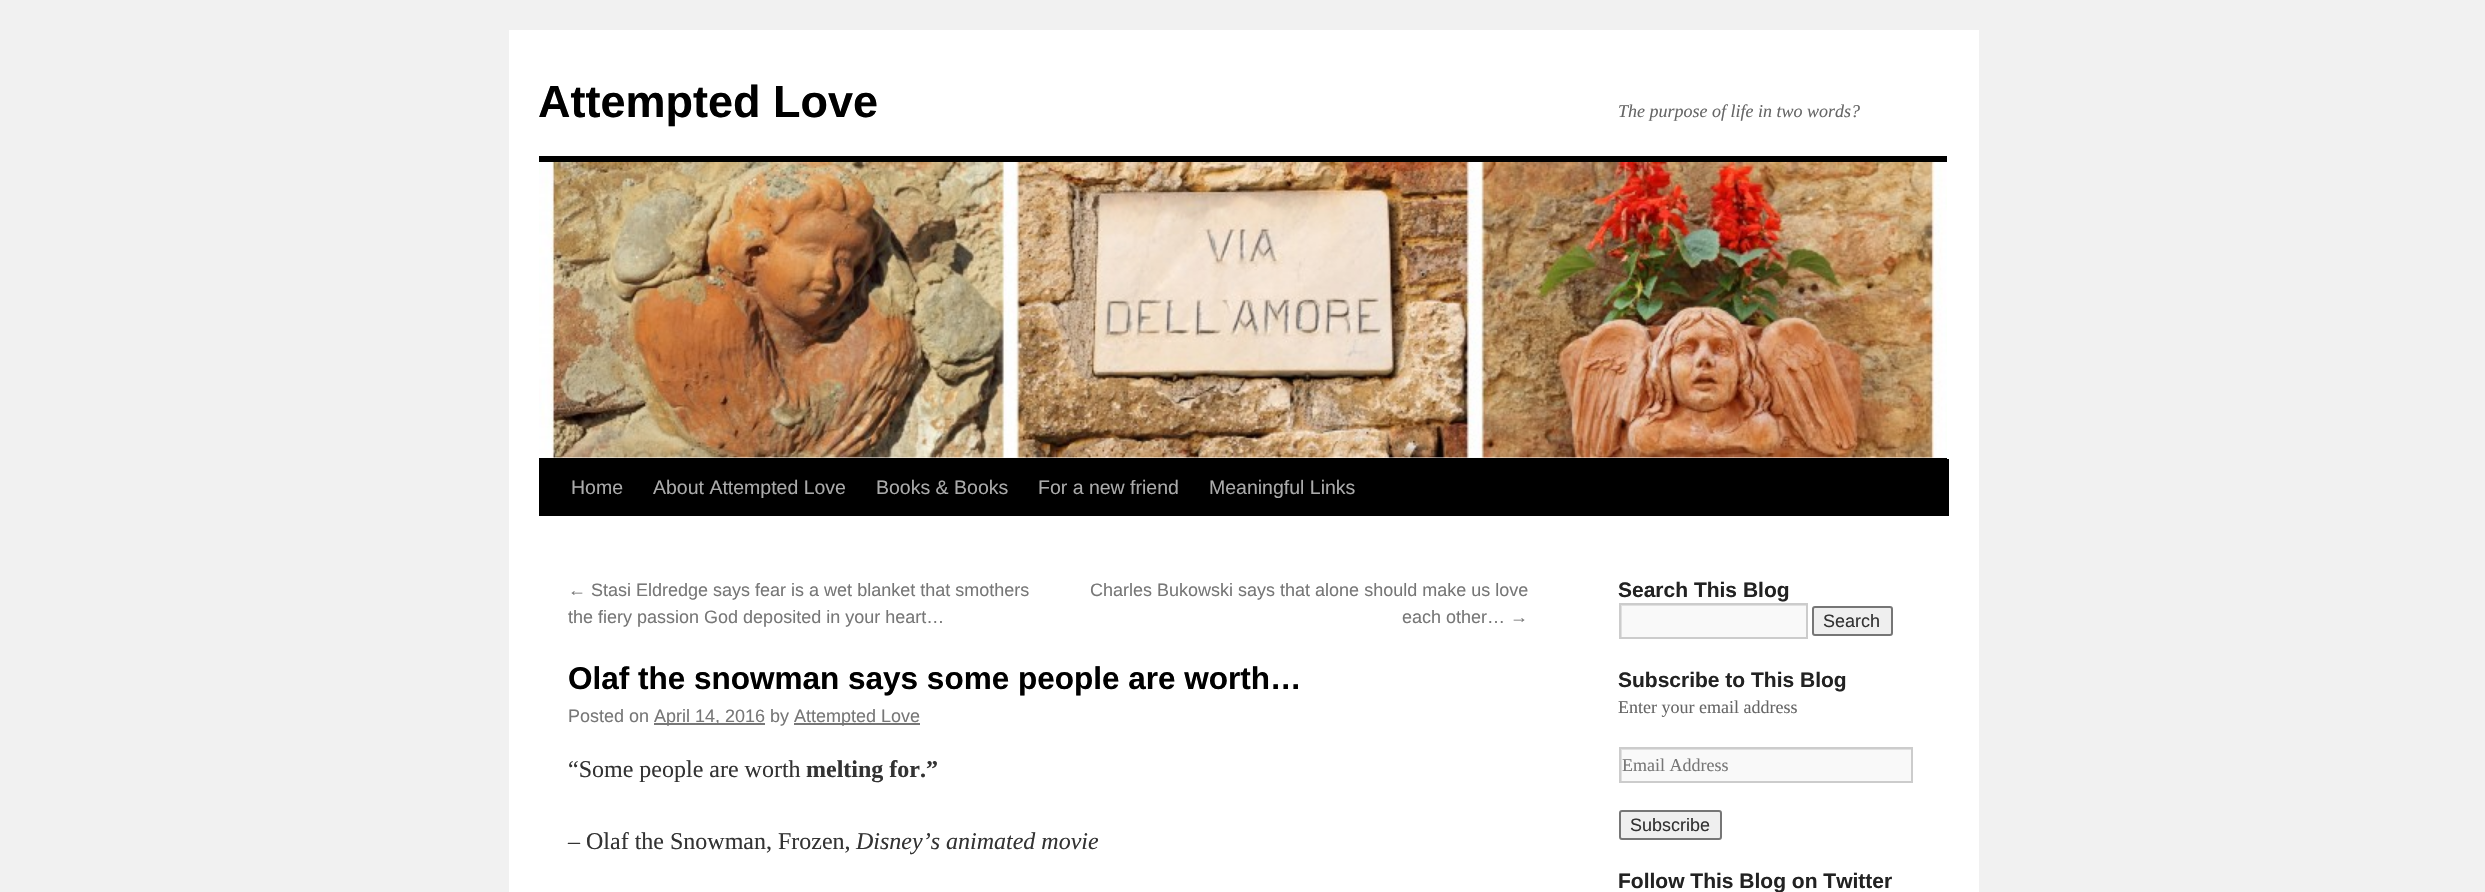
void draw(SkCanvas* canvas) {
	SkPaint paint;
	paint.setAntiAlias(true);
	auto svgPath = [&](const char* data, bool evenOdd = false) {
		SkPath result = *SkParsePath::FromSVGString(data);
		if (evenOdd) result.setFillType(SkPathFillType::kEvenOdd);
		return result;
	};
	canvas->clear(0xfff1f1f1);
	paint.setColor(0xffffffff);
	canvas->drawRect(SkRect::MakeXYWH(509, 30, 1470, 862), paint);
	SkFont f1(fontMgr->matchFamilyStyle("Liberation Sans", SkFontStyle::Bold()), 45);
	f1.setSubpixel(true);
	paint.setColor(0xff000000);
	canvas->drawString("Attempted Love", 538, 117, f1, paint);
	SkFont f2(fontMgr->matchFamilyStyle("Liberation Serif", SkFontStyle::Italic()), 18);
	f2.setSubpixel(true);
	paint.setColor(0xff666666);
	canvas->drawString("The purpose of life in two words?", 1618, 117, f2, paint);
	paint.setColor(0xff000000);
	canvas->drawRect(SkRect::MakeXYWH(539, 156, 1408, 6), paint);
	canvas->drawRect(SkRect::MakeXYWH(539, 458, 1408, 1), paint);
	canvas->drawImageRect(SkImages::DeferredFromEncodedData(SkData::MakeFromFileName("img1.png")), SkRect::MakeXYWH(539, 162, 1408, 296), SkSamplingOptions());
	canvas->drawRect(SkRect::MakeXYWH(539, 459, 1410, 57), paint);
	SkFont f3(fontMgr->matchFamilyStyle("Liberation Sans", SkFontStyle::Normal()), 19.5);
	f3.setSubpixel(true);
	paint.setColor(0xffaaaaaa);
	canvas->drawString("Home", 571, 494, f3, paint);
	canvas->drawString("About Attempted Love", 653, 494, f3, paint);
	canvas->drawString("Books & Books", 876, 494, f3, paint);
	canvas->drawString("For a new friend", 1038, 494, f3, paint);
	canvas->drawString("Meaningful Links", 1209, 494, f3, paint);
	SkFont f4(fontMgr->matchFamilyStyle("Liberation Sans", SkFontStyle::Normal()), 18);
	f4.setSubpixel(true);
	paint.setColor(0xff777777);
	canvas->drawString("← Stasi Eldredge says fear is a wet blanket that smothers", 568, 596, f4, paint);
	canvas->drawString("the fiery passion God deposited in your heart…", 568, 623, f4, paint);
	canvas->drawString("Charles Bukowski says that alone should make us love", 1090, 596, f4, paint);
	canvas->drawString("each other… →", 1402, 623, f4, paint);
	SkFont f5(fontMgr->matchFamilyStyle("Liberation Sans", SkFontStyle::Bold()), 31.5);
	f5.setSubpixel(true);
	paint.setColor(0xff000000);
	canvas->drawString("Olaf the snowman says some people are worth…", 568, 689, f5, paint);
	paint.setColor(0xff777777);
	canvas->drawString("Posted on", 568, 722, f4, paint);
	canvas->drawRect(SkRect::MakeXYWH(654, 723, 111, 2), paint);
	canvas->drawString("April 14, 2016 by", 654, 722, f4, paint);
	canvas->drawRect(SkRect::MakeXYWH(794, 723, 126, 2), paint);
	canvas->drawString("Attempted Love", 794, 722, f4, paint);
	SkFont f6(fontMgr->matchFamilyStyle("Liberation Serif", SkFontStyle::Normal()), 24);
	f6.setSubpixel(true);
	paint.setColor(0xff333333);
	canvas->drawString("“Some people are worth", 568, 777, f6, paint);
	SkFont f7(fontMgr->matchFamilyStyle("Liberation Serif", SkFontStyle::Bold()), 24);
	f7.setSubpixel(true);
	canvas->drawString("melting for.”", 806, 777, f7, paint);
	canvas->drawString("– Olaf the Snowman, Frozen,", 568, 849, f6, paint);
	SkFont f8(fontMgr->matchFamilyStyle("Liberation Serif", SkFontStyle::Italic()), 24);
	f8.setSubpixel(true);
	canvas->drawString("Disney’s animated movie", 856, 849, f8, paint);
	SkFont f9(fontMgr->matchFamilyStyle("Liberation Sans", SkFontStyle::Bold()), 21);
	f9.setSubpixel(true);
	paint.setColor(0xff222222);
	canvas->drawString("Search This Blog", 1618, 597, f9, paint);
	paint.setColor(0xfff9f9f9);
	canvas->drawRect(SkRect::MakeXYWH(1622, 606, 184, 31), paint);
	canvas->save();
	canvas->clipRect(SkRect::MakeXYWH(1620, 605, 186, 33));
	paint.setColor(0xffe0e0e0);
	canvas->drawPath(svgPath("M1472 456H1954V786H1472ZM1622 606H1808V639H1622Z", true), paint);
	canvas->restore();
	paint.setStroke(true);
	paint.setStrokeWidth(2);
	paint.setColor(0xffcccccc);
	canvas->drawRect(SkRect::MakeXYWH(1620, 604, 187, 34), paint);
	paint.setStroke(false);
	paint.setColor(0xffefefef);
	canvas->drawRoundRect(SkRect::MakeXYWH(1813, 607, 79, 28), 2, 2, paint);
	paint.setStroke(true);
	paint.setColor(0xff767676);
	canvas->drawRoundRect(SkRect::MakeXYWH(1813, 607, 79, 28), 2, 2, paint);
	paint.setStroke(false);
	paint.setColor(0xff333333);
	canvas->drawString("Search", 1823, 627, f4, paint);
	paint.setColor(0xff222222);
	canvas->drawString("Subscribe to This Blog", 1618, 687, f9, paint);
	SkFont f10(fontMgr->matchFamilyStyle("Liberation Serif", SkFontStyle::Normal()), 18);
	f10.setSubpixel(true);
	paint.setColor(0xff666666);
	canvas->drawString("Enter your email address", 1618, 713, f10, paint);
	paint.setColor(0xfff9f9f9);
	canvas->drawRect(SkRect::MakeXYWH(1622, 750, 289, 31), paint);
	canvas->save();
	canvas->clipRect(SkRect::MakeXYWH(1620, 749, 291, 33));
	paint.setColor(0xffe0e0e0);
	canvas->drawPath(svgPath("M1472 600H2060V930H1472ZM1622 750H1912V783H1622Z", true), paint);
	canvas->restore();
	paint.setStroke(true);
	paint.setColor(0xffcccccc);
	canvas->drawRect(SkRect::MakeXYWH(1620, 748, 292, 34), paint);
	paint.setStroke(false);
	paint.setColor(0xff777777);
	canvas->drawString("Email Address", 1622, 771, f10, paint);
	paint.setColor(0xffefefef);
	canvas->drawRoundRect(SkRect::MakeXYWH(1620, 811, 101, 28), 2, 2, paint);
	paint.setStroke(true);
	paint.setColor(0xff767676);
	canvas->drawRoundRect(SkRect::MakeXYWH(1620, 811, 101, 28), 2, 2, paint);
	paint.setStroke(false);
	paint.setColor(0xff333333);
	canvas->drawString("Subscribe", 1630, 831, f4, paint);
	paint.setColor(0xff222222);
	canvas->drawString("Follow This Blog on Twitter", 1618, 888, f9, paint);
}
